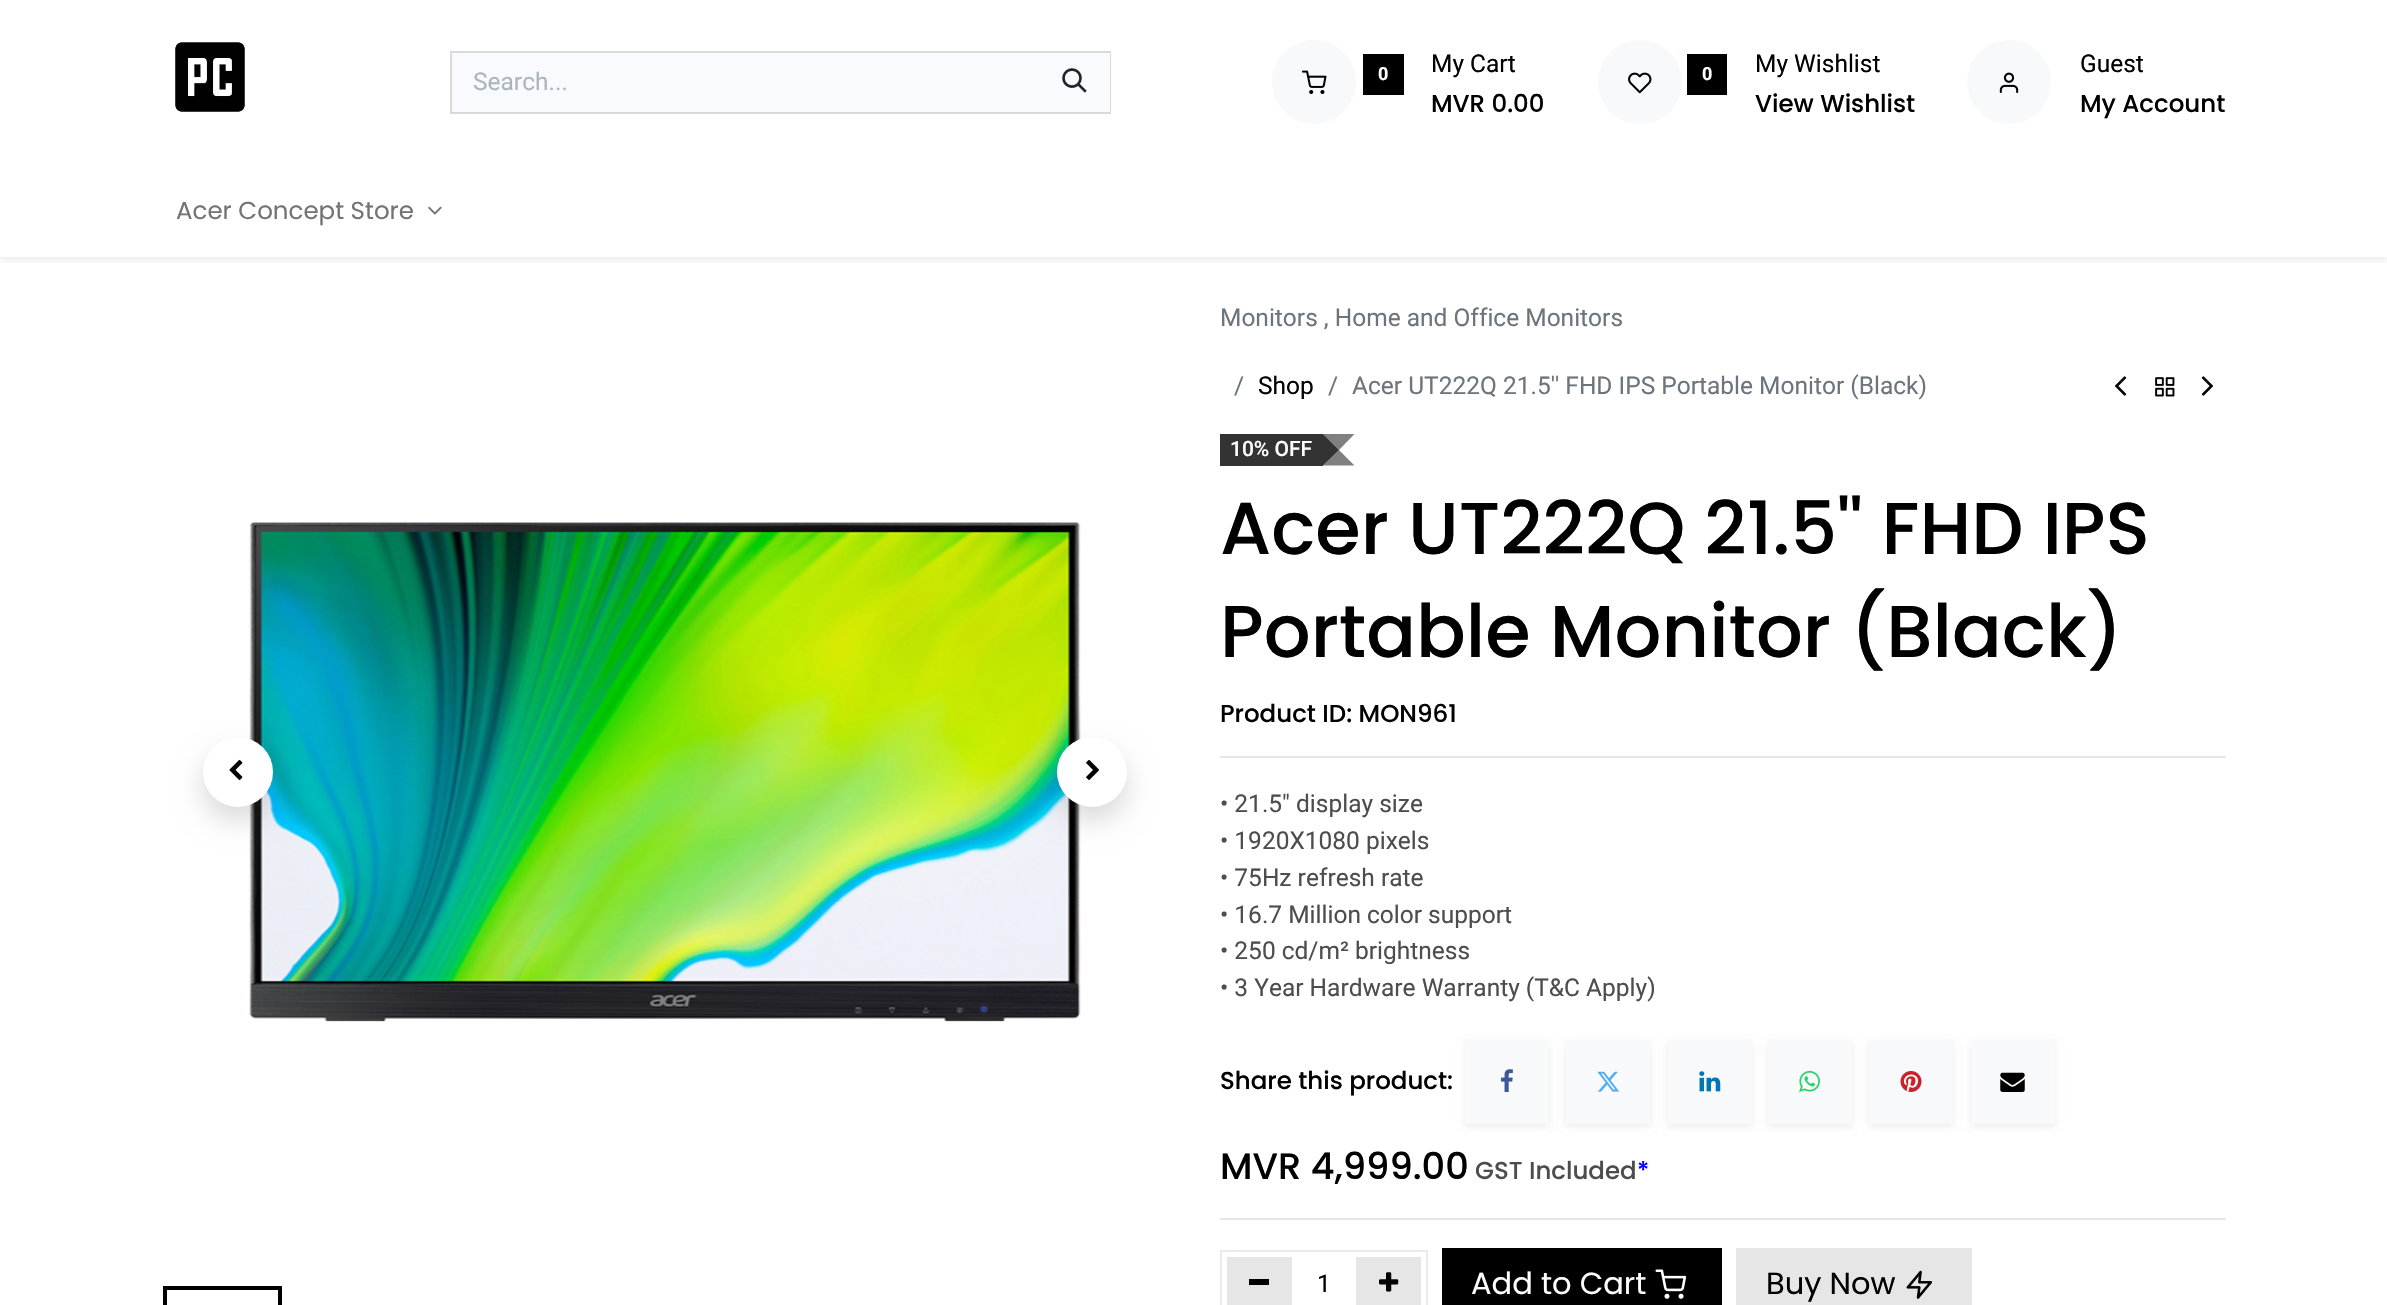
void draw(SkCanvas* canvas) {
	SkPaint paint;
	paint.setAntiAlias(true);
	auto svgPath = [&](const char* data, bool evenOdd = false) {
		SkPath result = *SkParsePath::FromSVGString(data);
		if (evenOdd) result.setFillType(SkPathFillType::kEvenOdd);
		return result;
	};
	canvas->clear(0xffffffff);
	canvas->drawImageRect(SkImages::DeferredFromEncodedData(SkData::MakeFromFileName("img1.png")), SkRect::MakeXYWH(175, 42, 70, 70), SkSamplingOptions());
	paint.setStroke(true);
	paint.setStrokeWidth(2);
	paint.setColor(0xffd9d9d9);
	canvas->drawRect(SkRect::MakeXYWH(451, 52, 659, 61), paint);
	paint.setStroke(false);
	paint.setColor(0xfff9fafe);
	canvas->drawRect(SkRect::MakeXYWH(452, 53, 658, 59), paint);
	SkFont f1(fontMgr->matchFamilyStyle("Roboto", SkFontStyle::Normal()), 24.5);
	f1.setSubpixel(true);
	paint.setColor(0xffadb5bd);
	canvas->drawString("Search...", 473, 90, f1, paint);
	canvas->drawImageRect(SkImages::DeferredFromEncodedData(SkData::MakeFromFileName("img2.png")), SkRect::MakeXYWH(1062, 68, 25, 25), SkSamplingOptions());
	paint.setColor(0xfff8f9fa);
	canvas->drawCircle(1314, 82, 42, paint);
	canvas->drawImageRect(SkImages::DeferredFromEncodedData(SkData::MakeFromFileName("img3.png")), SkRect::MakeXYWH(1302, 70, 25, 24), SkSamplingOptions());
	paint.setColor(0xff000000);
	canvas->drawRect(SkRect::MakeXYWH(1363, 54, 41, 41), paint);
	SkFont f2(fontMgr->matchFamilyStyle("Roboto", SkFontStyle::Bold()), 18);
	f2.setSubpixel(true);
	paint.setColor(0xffffffff);
	canvas->drawString("0", 1378, 80, f2, paint);
	paint.setColor(0xff000000);
	canvas->drawString("My Cart", 1431, 72, f1, paint);
	SkFont f3(fontMgr->matchFamilyStyle("Poppins", SkFontStyle(500, SkFontStyle::kNormal_Width, SkFontStyle::kUpright_Slant)), 24.5);
	f3.setSubpixel(true);
	canvas->drawString("MVR 0.00", 1431, 112, f3, paint);
	paint.setColor(0xfff8f9fa);
	canvas->drawCircle(1640, 82, 42, paint);
	canvas->drawImageRect(SkImages::DeferredFromEncodedData(SkData::MakeFromFileName("img4.png")), SkRect::MakeXYWH(1628, 72, 24, 22), SkSamplingOptions());
	paint.setColor(0xff000000);
	canvas->drawRect(SkRect::MakeXYWH(1687, 54, 40, 41), paint);
	paint.setColor(0xffffffff);
	canvas->drawString("0", 1702, 80, f2, paint);
	paint.setColor(0xff000000);
	canvas->drawString("My Wishlist", 1755, 72, f1, paint);
	canvas->drawString("View Wishlist", 1755, 112, f3, paint);
	paint.setColor(0xfff8f9fa);
	canvas->drawCircle(2009, 82, 42, paint);
	canvas->drawImageRect(SkImages::DeferredFromEncodedData(SkData::MakeFromFileName("img5.png")), SkRect::MakeXYWH(1999, 72, 20, 21), SkSamplingOptions());
	paint.setColor(0xff000000);
	canvas->drawString("Guest", 2080, 72, f1, paint);
	canvas->drawString("My Account", 2080, 112, f3, paint);
	canvas->save();
	canvas->clipRect(SkRect::MakeXYWH(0, 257, 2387, 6));
	paint.setColor(0x12000000);
	paint.setMaskFilter(SkMaskFilter::MakeBlur(kNormal_SkBlurStyle, 3.5));
	canvas->drawRect(SkRect::MakeXYWH(0, 168, 2387, 93), paint);
	paint.setMaskFilter(nullptr);
	canvas->restore();
	SkFont f4(fontMgr->matchFamilyStyle("Poppins", SkFontStyle::Normal()), 24.5);
	f4.setSubpixel(true);
	paint.setColor(0xff737373);
	canvas->drawString("Acer Concept Store", 176, 219, f4, paint);
	canvas->drawImageRect(SkImages::DeferredFromEncodedData(SkData::MakeFromFileName("img6.png")), SkRect::MakeXYWH(428, 206, 14, 9), SkSamplingOptions());
	canvas->drawImageRect(SkImages::DeferredFromEncodedData(SkData::MakeFromFileName("img8.png")), SkRect::MakeXYWH(249, 522, 832, 500), SkSamplingOptions());
	paint.setColor(0x26000000);
	paint.setMaskFilter(SkMaskFilter::MakeBlur(kNormal_SkBlurStyle, 14));
	canvas->drawRoundRect(SkRect::MakeXYWH(203, 751, 70, 70), 35, 35, paint);
	paint.setMaskFilter(nullptr);
	paint.setColor(0xffffffff);
	canvas->drawCircle(238, 772, 35, paint);
	canvas->drawImageRect(SkImages::DeferredFromEncodedData(SkData::MakeFromFileName("img7.png")), SkRect::MakeXYWH(229, 759, 14, 21), SkSamplingOptions());
	paint.setColor(0x26000000);
	paint.setMaskFilter(SkMaskFilter::MakeBlur(kNormal_SkBlurStyle, 14));
	canvas->drawRoundRect(SkRect::MakeXYWH(1057, 751, 70, 70), 35, 35, paint);
	paint.setMaskFilter(nullptr);
	paint.setColor(0xffffffff);
	canvas->drawCircle(1092, 772, 35, paint);
	canvas->drawImageRect(SkImages::DeferredFromEncodedData(SkData::MakeFromFileName("img9.png")), SkRect::MakeXYWH(1086, 760, 13, 20), SkSamplingOptions());
	paint.setStroke(true);
	paint.setStrokeWidth(4);
	paint.setColor(0xff000000);
	canvas->drawRect(SkRect::MakeXYWH(165, 1288, 115, 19), paint);
	paint.setStroke(false);
	paint.setColor(0xff6c757d);
	canvas->drawString("Monitors , Home and Office Monitors", 1220, 326, f1, paint);
	canvas->drawString("/", 1234, 394, f1, paint);
	paint.setColor(0xff000000);
	canvas->drawString("Shop", 1258, 394, f1, paint);
	paint.setColor(0xff6c757d);
	canvas->drawString("/", 1328, 394, f1, paint);
	canvas->drawString("Acer UT222Q 21.5'' FHD IPS Portable Monitor (Black)", 1352, 394, f1, paint);
	canvas->drawImageRect(SkImages::DeferredFromEncodedData(SkData::MakeFromFileName("img10.png")), SkRect::MakeXYWH(2115, 376, 12, 20), SkSamplingOptions());
	canvas->drawImageRect(SkImages::DeferredFromEncodedData(SkData::MakeFromFileName("img11.png")), SkRect::MakeXYWH(2155, 377, 20, 20), SkSamplingOptions());
	canvas->drawImageRect(SkImages::DeferredFromEncodedData(SkData::MakeFromFileName("img12.png")), SkRect::MakeXYWH(2201, 376, 12, 20), SkSamplingOptions());
	paint.setColor(0xff333333);
	canvas->drawRect(SkRect::MakeXYWH(1220, 434, 103, 32), paint);
	SkFont f5(fontMgr->matchFamilyStyle("Roboto", SkFontStyle(500, SkFontStyle::kNormal_Width, SkFontStyle::kUpright_Slant)), 21);
	f5.setSubpixel(true);
	paint.setColor(0xffffffff);
	canvas->drawString("10% OFF", 1230, 456, f5, paint);
	paint.setColor(0xff808080);
	canvas->drawPath(svgPath("M1323 434H1354.5L1339 450ZM1354.5 465.5H1323L1339 450Z"), paint);
	paint.setColor(0xcc000000);
	canvas->drawPath(svgPath("M1323 465.5V434L1339 450Z"), paint);
	SkFont f6(fontMgr->matchFamilyStyle("Poppins", SkFontStyle(500, SkFontStyle::kNormal_Width, SkFontStyle::kUpright_Slant)), 73.5);
	f6.setSubpixel(true);
	paint.setColor(0xff000000);
	canvas->drawString("Acer UT222Q 21.5'' FHD IPS", 1220, 554, f6, paint);
	canvas->drawString("Portable Monitor (Black)", 1220, 657, f6, paint);
	canvas->drawString("Product ID: MON961", 1220, 722, f3, paint);
	paint.setColor(0xffe6e6e6);
	canvas->drawRect(SkRect::MakeXYWH(1220, 756, 1006, 2), paint);
	paint.setColor(0xff4d4d4d);
	canvas->drawString("• 21.5\" display size", 1220, 812, f1, paint);
	canvas->drawString("• 1920X1080 pixels", 1220, 849, f1, paint);
	canvas->drawString("• 75Hz refresh rate", 1220, 886, f1, paint);
	canvas->drawString("• 16.7 Million color support", 1220, 923, f1, paint);
	canvas->drawString("• 250 cd/m² brightness", 1220, 959, f1, paint);
	canvas->drawString("• 3 Year Hardware Warranty (T&C Apply)", 1220, 996, f1, paint);
	paint.setColor(0xff000000);
	canvas->drawString("Share this product:", 1220, 1089, f3, paint);
	paint.setColor(0x12000000);
	paint.setMaskFilter(SkMaskFilter::MakeBlur(kNormal_SkBlurStyle, 3.5));
	canvas->drawRect(SkRect::MakeXYWH(1465, 1043, 84, 84), paint);
	paint.setMaskFilter(nullptr);
	paint.setColor(0xfff8f9fa);
	canvas->drawRect(SkRect::MakeXYWH(1465, 1040, 84, 84), paint);
	canvas->drawImageRect(SkImages::DeferredFromEncodedData(SkData::MakeFromFileName("img13.png")), SkRect::MakeXYWH(1501, 1069, 12, 23), SkSamplingOptions());
	paint.setColor(0x12000000);
	paint.setMaskFilter(SkMaskFilter::MakeBlur(kNormal_SkBlurStyle, 3.5));
	canvas->drawRect(SkRect::MakeXYWH(1566, 1043, 84, 84), paint);
	paint.setMaskFilter(nullptr);
	paint.setColor(0xfff8f9fa);
	canvas->drawRect(SkRect::MakeXYWH(1566, 1040, 84, 84), paint);
	canvas->drawImageRect(SkImages::DeferredFromEncodedData(SkData::MakeFromFileName("img14.png")), SkRect::MakeXYWH(1597, 1071, 23, 21), SkSamplingOptions());
	paint.setColor(0x12000000);
	paint.setMaskFilter(SkMaskFilter::MakeBlur(kNormal_SkBlurStyle, 3.5));
	canvas->drawRect(SkRect::MakeXYWH(1668, 1043, 84, 84), paint);
	paint.setMaskFilter(nullptr);
	paint.setColor(0xfff8f9fa);
	canvas->drawRect(SkRect::MakeXYWH(1668, 1040, 84, 84), paint);
	canvas->drawImageRect(SkImages::DeferredFromEncodedData(SkData::MakeFromFileName("img15.png")), SkRect::MakeXYWH(1699, 1071, 22, 21), SkSamplingOptions());
	paint.setColor(0x12000000);
	paint.setMaskFilter(SkMaskFilter::MakeBlur(kNormal_SkBlurStyle, 3.5));
	canvas->drawRect(SkRect::MakeXYWH(1768, 1043, 84, 84), paint);
	paint.setMaskFilter(nullptr);
	paint.setColor(0xfff8f9fa);
	canvas->drawRect(SkRect::MakeXYWH(1768, 1040, 84, 84), paint);
	canvas->drawImageRect(SkImages::DeferredFromEncodedData(SkData::MakeFromFileName("img16.png")), SkRect::MakeXYWH(1799, 1070, 21, 22), SkSamplingOptions());
	paint.setColor(0x12000000);
	paint.setMaskFilter(SkMaskFilter::MakeBlur(kNormal_SkBlurStyle, 3.5));
	canvas->drawRect(SkRect::MakeXYWH(1869, 1043, 84, 84), paint);
	paint.setMaskFilter(nullptr);
	paint.setColor(0xfff8f9fa);
	canvas->drawRect(SkRect::MakeXYWH(1869, 1040, 84, 84), paint);
	canvas->drawImageRect(SkImages::DeferredFromEncodedData(SkData::MakeFromFileName("img17.png")), SkRect::MakeXYWH(1900, 1071, 22, 21), SkSamplingOptions());
	paint.setColor(0x12000000);
	paint.setMaskFilter(SkMaskFilter::MakeBlur(kNormal_SkBlurStyle, 3.5));
	canvas->drawRect(SkRect::MakeXYWH(1971, 1043, 84, 84), paint);
	paint.setMaskFilter(nullptr);
	paint.setColor(0xfff8f9fa);
	canvas->drawRect(SkRect::MakeXYWH(1971, 1040, 84, 84), paint);
	canvas->drawImageRect(SkImages::DeferredFromEncodedData(SkData::MakeFromFileName("img18.png")), SkRect::MakeXYWH(2000, 1072, 25, 20), SkSamplingOptions());
	SkFont f7(fontMgr->matchFamilyStyle("Poppins", SkFontStyle(500, SkFontStyle::kNormal_Width, SkFontStyle::kUpright_Slant)), 36.75);
	f7.setSubpixel(true);
	paint.setColor(0xff000000);
	canvas->drawString("MVR 4,999.00", 1220, 1179, f7, paint);
	paint.setColor(0xff4d4d4d);
	canvas->drawString("GST Included", 1475, 1179, f3, paint);
	paint.setColor(0xff0000ff);
	canvas->drawString("*", 1637, 1179, f3, paint);
	paint.setColor(0xffe6e6e6);
	canvas->drawRect(SkRect::MakeXYWH(1220, 1218, 1006, 2), paint);
	paint.setStroke(true);
	paint.setStrokeWidth(2);
	paint.setColor(0xffe9ecef);
	canvas->drawRect(SkRect::MakeXYWH(1221, 1251, 206, 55), paint);
	paint.setStroke(false);
	paint.setColor(0xffe6e6e6);
	canvas->drawRect(SkRect::MakeXYWH(1227, 1257, 65, 48), paint);
	paint.setColor(0xff000000);
	canvas->drawRect(SkRect::MakeXYWH(1249, 1279, 20, 6), paint);
	canvas->drawString("1", 1317, 1292, f1, paint);
	paint.setColor(0xffe6e6e6);
	canvas->drawRect(SkRect::MakeXYWH(1356, 1257, 65, 48), paint);
	canvas->drawImageRect(SkImages::DeferredFromEncodedData(SkData::MakeFromFileName("img19.png")), SkRect::MakeXYWH(1379, 1272, 20, 20), SkSamplingOptions());
	paint.setColor(0xff000000);
	canvas->drawRect(SkRect::MakeXYWH(1442, 1248, 280, 57), paint);
	SkFont f8(fontMgr->matchFamilyStyle("Poppins", SkFontStyle::Normal()), 30.5);
	f8.setSubpixel(true);
	paint.setColor(0xffffffff);
	canvas->drawString("Add to Cart", 1471, 1294, f8, paint);
	canvas->drawImageRect(SkImages::DeferredFromEncodedData(SkData::MakeFromFileName("img20.png")), SkRect::MakeXYWH(1655, 1269, 32, 30), SkSamplingOptions());
	paint.setColor(0xffe6e6e6);
	canvas->drawRect(SkRect::MakeXYWH(1736, 1248, 236, 57), paint);
	paint.setColor(0xff000000);
	canvas->drawString("Buy Now", 1766, 1294, f8, paint);
	canvas->drawImageRect(SkImages::DeferredFromEncodedData(SkData::MakeFromFileName("img21.png")), SkRect::MakeXYWH(1906, 1270, 27, 29), SkSamplingOptions());
}
